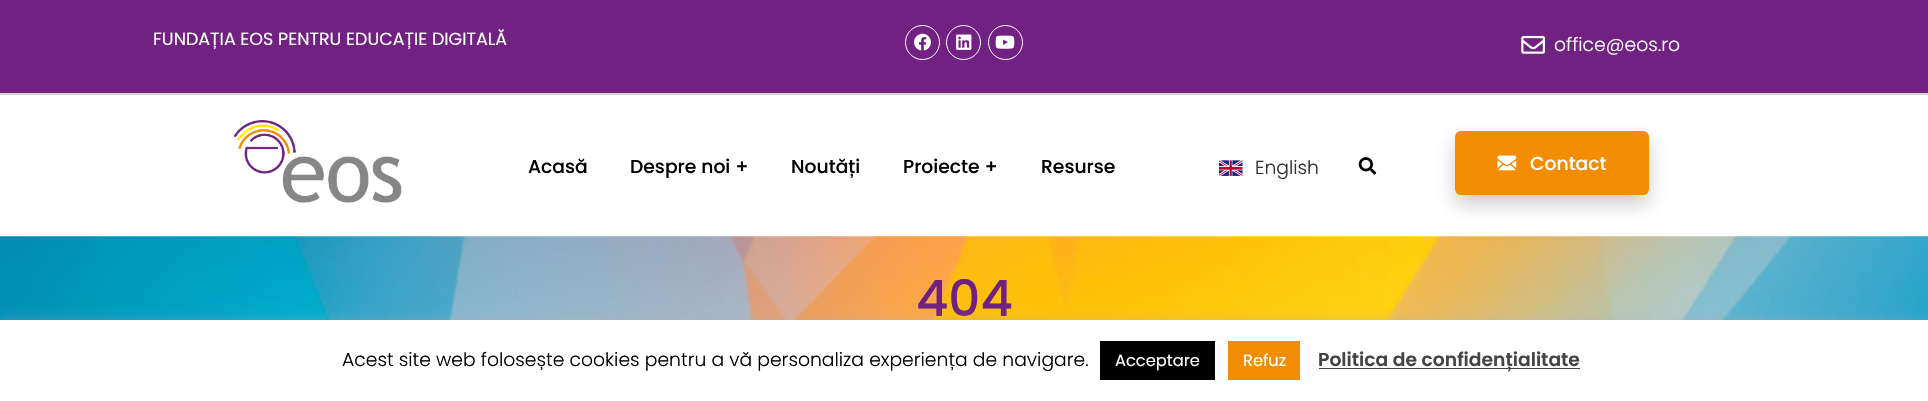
void draw(SkCanvas* canvas) {
	SkPaint paint;
	paint.setAntiAlias(true);
	canvas->clear(0xffffffff);
	paint.setColor(0xff702181);
	canvas->drawRect(SkRect::MakeXYWH(0, 0, 1928, 93), paint);
	paint.setColor(0xffd6d3d3);
	canvas->drawRect(SkRect::MakeXYWH(0, 93, 1928, 2), paint);
	SkFont f1(fontMgr->matchFamilyStyle("Poppins", SkFontStyle::Normal()), 17.5);
	f1.setSubpixel(true);
	paint.setColor(0xffffffff);
	canvas->drawString("FUNDAȚIA EOS PENTRU EDUCAȚIE DIGITALĂ", 153, 45, f1, paint);
	paint.setStroke(true);
	paint.setStrokeWidth(1);
	canvas->drawCircle(922.5, 42.5, 17, paint);
	canvas->drawImageRect(SkImages::DeferredFromEncodedData(SkData::MakeFromFileName("img1.png")), SkRect::MakeXYWH(914, 33, 17, 18), SkSamplingOptions());
	canvas->drawCircle(963.5, 42.5, 17, paint);
	canvas->drawImageRect(SkImages::DeferredFromEncodedData(SkData::MakeFromFileName("img2.png")), SkRect::MakeXYWH(956, 34, 16, 16), SkSamplingOptions());
	canvas->drawCircle(1005.5, 42.5, 17, paint);
	canvas->drawImageRect(SkImages::DeferredFromEncodedData(SkData::MakeFromFileName("img3.png")), SkRect::MakeXYWH(995, 35, 20, 14), SkSamplingOptions());
	canvas->drawImageRect(SkImages::DeferredFromEncodedData(SkData::MakeFromFileName("img4.png")), SkRect::MakeXYWH(1521, 35, 24, 19), SkSamplingOptions());
	SkFont f2(fontMgr->matchFamilyStyle("Poppins", SkFontStyle(300, SkFontStyle::kNormal_Width, SkFontStyle::kUpright_Slant)), 18.75);
	f2.setSubpixel(true);
	paint.setStroke(false);
	canvas->drawString("office@eos.ro", 1554, 51, f2, paint);
	canvas->drawImageRect(SkImages::DeferredFromEncodedData(SkData::MakeFromFileName("img5.png")), SkRect::MakeXYWH(233, 120, 169, 83), SkSamplingOptions());
	SkFont f3(fontMgr->matchFamilyStyle("Poppins", SkFontStyle(500, SkFontStyle::kNormal_Width, SkFontStyle::kUpright_Slant)), 18.75);
	f3.setSubpixel(true);
	paint.setColor(0xff000000);
	canvas->drawString("Acasă", 528, 173, f3, paint);
	canvas->drawString("Despre noi +", 630, 173, f3, paint);
	canvas->drawString("Noutăți", 791, 173, f3, paint);
	canvas->drawString("Proiecte +", 903, 173, f3, paint);
	canvas->drawString("Resurse", 1041, 173, f3, paint);
	canvas->drawImageRect(SkImages::DeferredFromEncodedData(SkData::MakeFromFileName("img6.png")), SkRect::MakeXYWH(1219, 160, 24, 16), SkSamplingOptions());
	paint.setColor(0xff303030);
	canvas->drawString("English", 1255, 174, f2, paint);
	canvas->drawImageRect(SkImages::DeferredFromEncodedData(SkData::MakeFromFileName("img7.png")), SkRect::MakeXYWH(1358, 157, 19, 18), SkSamplingOptions());
	paint.setColor(0x380c0c0c);
	paint.setMaskFilter(SkMaskFilter::MakeBlur(kNormal_SkBlurStyle, 10));
	canvas->drawRoundRect(SkRect::MakeXYWH(1455, 140, 194, 64), 6, 6, paint);
	paint.setMaskFilter(nullptr);
	paint.setColor(0xfff28c00);
	canvas->drawRoundRect(SkRect::MakeXYWH(1455, 131, 194, 64), 6, 6, paint);
	canvas->drawImageRect(SkImages::DeferredFromEncodedData(SkData::MakeFromFileName("img8.png")), SkRect::MakeXYWH(1497, 155, 20, 16), SkSamplingOptions());
	paint.setColor(0xffffffff);
	canvas->drawString("Contact", 1530, 170, f3, paint);
	canvas->drawImageRect(SkImages::DeferredFromEncodedData(SkData::MakeFromFileName("img9.png")), SkRect::MakeXYWH(0, 236, 1928, 84), SkSamplingOptions());
	SkFont f4(fontMgr->matchFamilyStyle("Poppins", SkFontStyle(500, SkFontStyle::kNormal_Width, SkFontStyle::kUpright_Slant)), 50);
	f4.setSubpixel(true);
	paint.setColor(0xff702181);
	canvas->drawString("404", 916, 316, f4, paint);
	paint.setColor(0x4dacabab);
	paint.setMaskFilter(SkMaskFilter::MakeBlur(kNormal_SkBlurStyle, 6));
	canvas->drawRect(SkRect::MakeXYWH(0, 319, 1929, 81), paint);
	paint.setMaskFilter(nullptr);
	paint.setColor(0xffffffff);
	canvas->drawRect(SkRect::MakeXYWH(0, 320, 1928, 81), paint);
	paint.setColor(0xff000000);
	canvas->drawString("Acest site web folosește cookies pentru a vă personaliza experiența de navigare.", 342, 366, f2, paint);
	canvas->drawRect(SkRect::MakeXYWH(1100, 341, 115, 39), paint);
	SkFont f5(fontMgr->matchFamilyStyle("Poppins", SkFontStyle::Normal()), 16.25);
	f5.setSubpixel(true);
	paint.setColor(0xffffffff);
	canvas->drawString("Acceptare", 1115, 366, f5, paint);
	paint.setColor(0xfff28c00);
	canvas->drawRect(SkRect::MakeXYWH(1228, 341, 72, 39), paint);
	paint.setColor(0xffffffff);
	canvas->drawString("Refuz", 1243, 366, f5, paint);
	paint.setColor(0xff444444);
	canvas->drawRect(SkRect::MakeXYWH(1319, 368, 261, 1), paint);
	SkFont f6(fontMgr->matchFamilyStyle("Poppins", SkFontStyle(600, SkFontStyle::kNormal_Width, SkFontStyle::kUpright_Slant)), 18.75);
	f6.setSubpixel(true);
	canvas->drawString("Politica de confidențialitate", 1318, 366, f6, paint);
}
